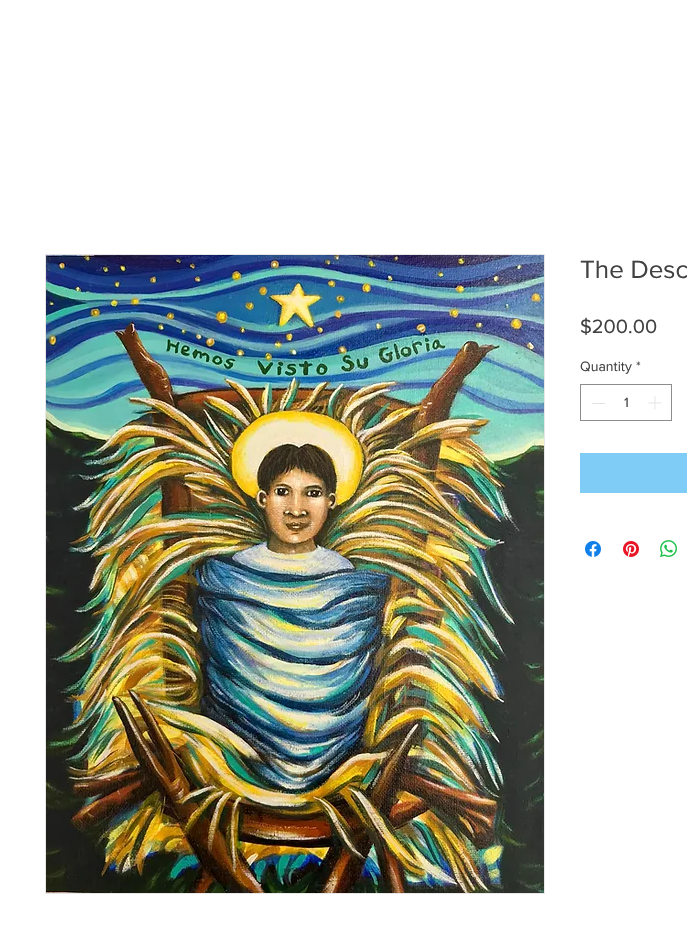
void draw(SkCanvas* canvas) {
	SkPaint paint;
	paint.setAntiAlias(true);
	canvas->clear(0xffffffff);
	paint.setStroke(true);
	paint.setStrokeWidth(1);
	paint.setColor(0xffe8e6e6);
	canvas->drawRect(SkRect::MakeXYWH(45.5, 254.5, 499, 639), paint);
	canvas->drawImageRect(SkImages::DeferredFromEncodedData(SkData::MakeFromFileName("img1.png")), SkRect::MakeXYWH(46, 255, 498, 638), SkSamplingOptions());
	SkFont f1(fontMgr->matchFamilyStyle("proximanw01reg", SkFontStyle::Normal()), 26);
	f1.setSubpixel(true);
	paint.setStroke(false);
	paint.setColor(0xff414141);
	canvas->drawString("The Desc", 580, 278, f1, paint);
	SkFont f2(fontMgr->matchFamilyStyle("proximanw01reg", SkFontStyle::Normal()), 20);
	f2.setSubpixel(true);
	canvas->drawString("$200.00", 580, 333, f2, paint);
	SkFont f3(fontMgr->matchFamilyStyle("proximanw01reg", SkFontStyle::Normal()), 14);
	f3.setSubpixel(true);
	canvas->drawString("Quantity", 580, 371, f3, paint);
	canvas->drawString("*", 636, 371, f3, paint);
	paint.setStroke(true);
	paint.setColor(0xff8d8d8d);
	canvas->drawRect(SkRect::MakeXYWH(580.5, 384.5, 91, 36), paint);
	paint.setStroke(false);
	paint.setColor(0xffe3e3e3);
	canvas->drawRect(SkRect::MakeXYWH(592, 403, 13, 1), paint);
	paint.setColor(0xff414141);
	canvas->drawString("1", 624, 407, f3, paint);
	canvas->drawImageRect(SkImages::DeferredFromEncodedData(SkData::MakeFromFileName("img2.png")), SkRect::MakeXYWH(648, 396, 14, 14), SkSamplingOptions());
	paint.setColor(0xff7fccf7);
	canvas->drawRect(SkRect::MakeXYWH(580, 453, 107, 40), paint);
	canvas->drawImageRect(SkImages::DeferredFromEncodedData(SkData::MakeFromFileName("img3.png")), SkRect::MakeXYWH(585, 541, 16, 16), SkSamplingOptions());
	canvas->drawImageRect(SkImages::DeferredFromEncodedData(SkData::MakeFromFileName("img4.png")), SkRect::MakeXYWH(623, 541, 16, 16), SkSamplingOptions());
	canvas->drawImageRect(SkImages::DeferredFromEncodedData(SkData::MakeFromFileName("img5.png")), SkRect::MakeXYWH(660, 540, 17, 17), SkSamplingOptions());
}
